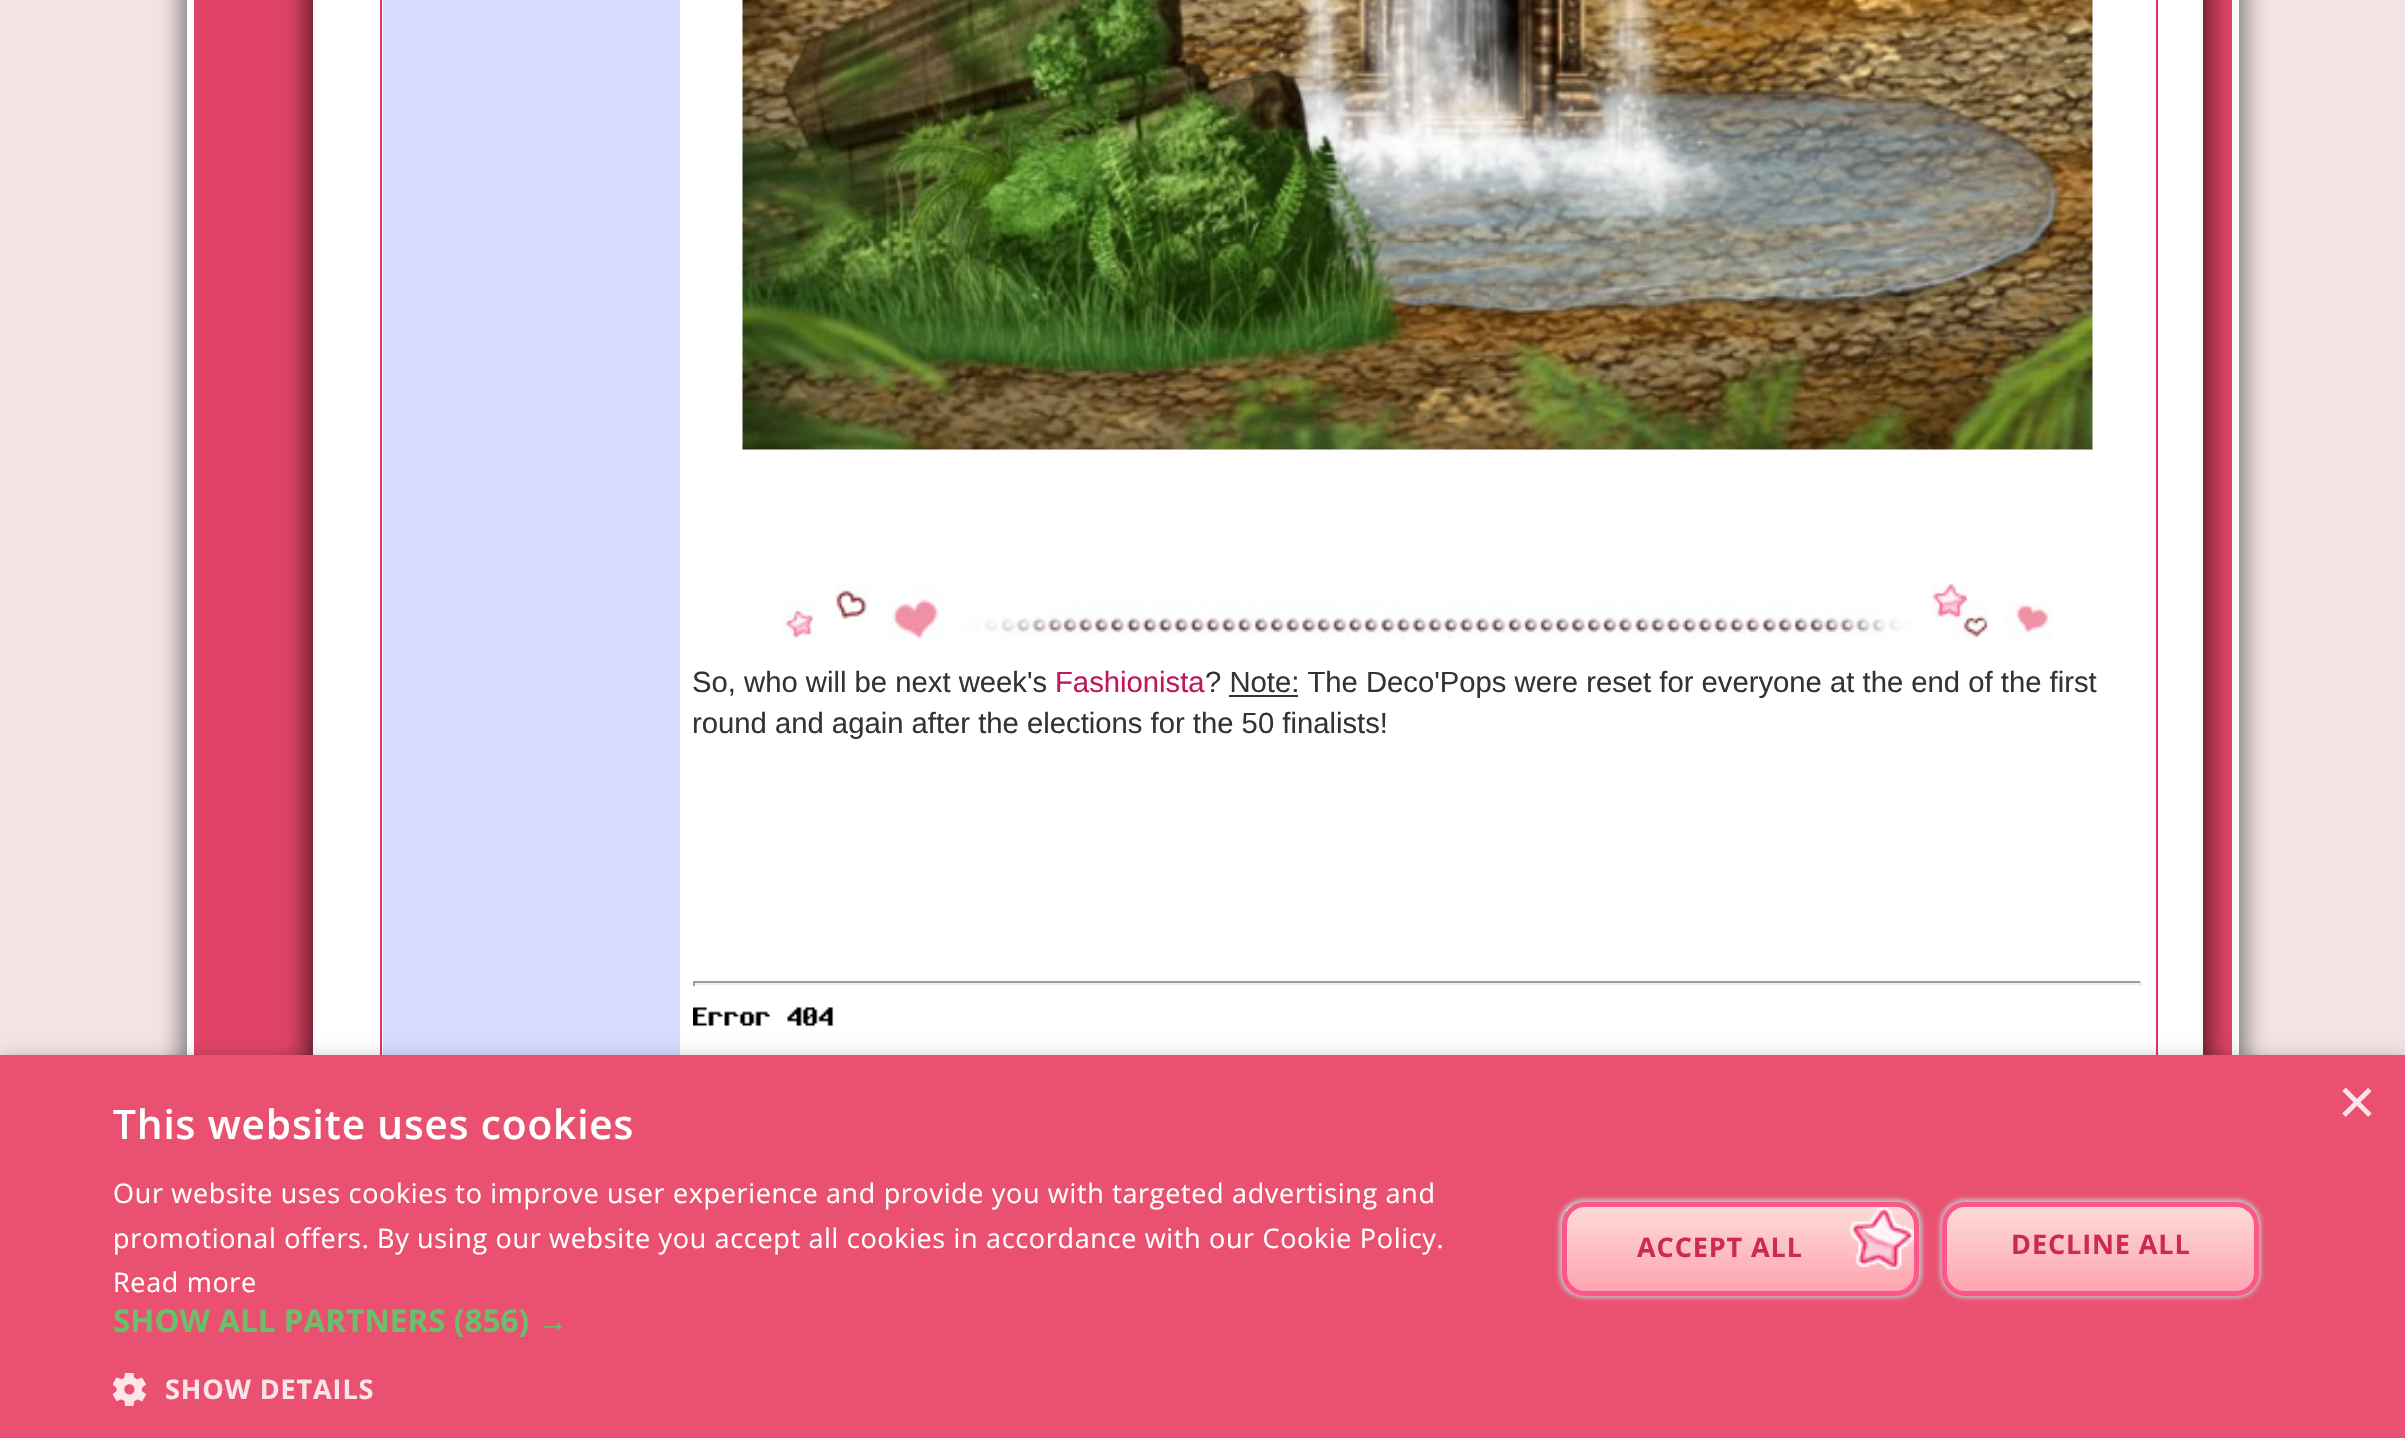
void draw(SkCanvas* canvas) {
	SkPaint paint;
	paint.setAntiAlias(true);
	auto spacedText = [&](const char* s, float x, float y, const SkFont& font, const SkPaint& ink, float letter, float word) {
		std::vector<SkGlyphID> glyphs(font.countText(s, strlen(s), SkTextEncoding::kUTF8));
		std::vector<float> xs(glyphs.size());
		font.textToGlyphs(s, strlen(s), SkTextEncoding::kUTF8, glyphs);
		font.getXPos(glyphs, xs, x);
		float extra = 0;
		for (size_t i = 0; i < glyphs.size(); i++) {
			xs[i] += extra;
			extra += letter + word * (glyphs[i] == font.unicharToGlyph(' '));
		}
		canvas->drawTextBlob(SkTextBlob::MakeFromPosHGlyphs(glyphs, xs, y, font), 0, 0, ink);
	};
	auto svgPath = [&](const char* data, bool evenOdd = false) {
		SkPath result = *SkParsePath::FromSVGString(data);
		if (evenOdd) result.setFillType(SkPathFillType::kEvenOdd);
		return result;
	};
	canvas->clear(0xfff5e3e3);
	paint.setColor(0xff808080);
	paint.setMaskFilter(SkMaskFilter::MakeBlur(kNormal_SkBlurStyle, 11));
	canvas->drawRoundRect(SkRect::MakeXYWH(180, -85, 2066, 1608), 52, 52, paint);
	paint.setMaskFilter(nullptr);
	{
		const SkColor colors[] = {0xffe04466, 0xffff8ca5};
		const float stops[] = {0.61, 1};
		const SkPoint ends[] = {{194, 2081}, {194, -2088}};
		paint.setShader(SkGradientShader::MakeLinear(ends, colors, stops, 2, SkTileMode::kClamp));
		paint.setAlpha(255);
	}
	canvas->drawRect(SkRect::MakeXYWH(194, 0, 2038, 1055), paint);
	paint.setStroke(true);
	paint.setStrokeWidth(7);
	paint.setShader(nullptr);
	paint.setColor(0xffffffff);
	canvas->drawRect(SkRect::MakeXYWH(190.5, -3.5, 2045, 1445), paint);
	paint.setStroke(false);
	paint.setColor(0x99000000);
	paint.setMaskFilter(SkMaskFilter::MakeBlur(kNormal_SkBlurStyle, 11));
	canvas->drawRect(SkRect::MakeXYWH(306, -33, 1904, 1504), paint);
	paint.setMaskFilter(nullptr);
	paint.setColor(0xffffffff);
	canvas->drawRect(SkRect::MakeXYWH(313, 0, 1890, 1055), paint);
	paint.setStroke(true);
	paint.setStrokeWidth(2);
	paint.setColor(0xffe33369);
	canvas->drawRect(SkRect::MakeXYWH(381, -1, 1776, 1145), paint);
	paint.setStroke(false);
	paint.setColor(0xffd5dcff);
	canvas->drawRect(SkRect::MakeXYWH(383, 0, 297, 1055), paint);
	canvas->drawImageRect(SkImages::DeferredFromEncodedData(SkData::MakeFromFileName("img1.png")), SkRect::MakeXYWH(742, 0, 1351, 450), SkSamplingOptions());
	canvas->drawImageRect(SkImages::DeferredFromEncodedData(SkData::MakeFromFileName("img2.png")), SkRect::MakeXYWH(781, 584, 1271, 55), SkSamplingOptions());
	SkFont f1(fontMgr->matchFamilyStyle("Liberation Sans", SkFontStyle::Normal()), 29.25);
	f1.setSubpixel(true);
	paint.setColor(0xff333333);
	canvas->drawString("So, who will be next week's", 692, 692, f1, paint);
	paint.setColor(0xffbf1759);
	canvas->drawString("Fashionista", 1055, 692, f1, paint);
	paint.setColor(0xff333333);
	canvas->drawString("? Note: The Deco'Pops were reset for everyone at the end of the first", 1205, 692, f1, paint);
	canvas->drawRect(SkRect::MakeXYWH(1229, 695, 69, 2), paint);
	canvas->drawString("round and again after the elections for the 50 finalists!", 692, 733, f1, paint);
	paint.setColor(0xff9f9f9f);
	canvas->drawRect(SkRect::MakeXYWH(693, 981, 1449, 2), paint);
	paint.setColor(0xffeeeeee);
	canvas->drawRect(SkRect::MakeXYWH(2140, 981, 2, 5), paint);
	canvas->drawRect(SkRect::MakeXYWH(693, 983, 1449, 2), paint);
	paint.setColor(0xff9f9f9f);
	canvas->drawRect(SkRect::MakeXYWH(693, 981, 2, 5), paint);
	canvas->drawImageRect(SkImages::DeferredFromEncodedData(SkData::MakeFromFileName("img3.png")), SkRect::MakeXYWH(693, 1007, 141, 20), SkSamplingOptions());
	paint.setColor(0x59000000);
	paint.setMaskFilter(SkMaskFilter::MakeBlur(kNormal_SkBlurStyle, 9));
	canvas->drawRect(SkRect::MakeXYWH(2, 1060, 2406, 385), paint);
	paint.setMaskFilter(nullptr);
	paint.setColor(0xffea5170);
	canvas->drawRect(SkRect::MakeXYWH(0, 1055, 2405, 383), paint);
	SkFont f2(fontMgr->matchFamilyStyle("Liberation Sans", SkFontStyle::Normal()), 65);
	f2.setSubpixel(true);
	paint.setColor(0xfffce5ea);
	canvas->drawString("×", 2338, 1124, f2, paint);
	SkFont f3(fontMgr->matchFamilyStyle("Open Sans", SkFontStyle(600, SkFontStyle::kNormal_Width, SkFontStyle::kUpright_Slant)), 40.5);
	f3.setSubpixel(true);
	paint.setColor(0xffffffff);
	spacedText("This website uses cookies", 113, 1139, f3, paint, 0.9, 0);
	SkFont f4(fontMgr->matchFamilyStyle("Open Sans", SkFontStyle::Normal()), 27);
	f4.setSubpixel(true);
	spacedText("Our website uses cookies to improve user experience and provide you with targeted advertising and", 113, 1203, f4, paint, 0.67, 0);
	spacedText("promotional offers. By using our website you accept all cookies in accordance with our Cookie Policy.", 113, 1248, f4, paint, 0.67, 0);
	spacedText("Read more", 113, 1292, f4, paint, 0.67, 0);
	SkFont f5(fontMgr->matchFamilyStyle("Open Sans", SkFontStyle::Bold()), 31.5);
	f5.setSubpixel(true);
	paint.setColor(0xff6bbe6b);
	canvas->drawString("SHOW ALL PARTNERS (856)", 113, 1332, f5, paint);
	SkFont f6(fontMgr->matchFamilyStyle("Liberation Sans", SkFontStyle::Bold()), 31.5);
	f6.setSubpixel(true);
	canvas->drawString("→", 537, 1332, f6, paint);
	canvas->drawImageRect(SkImages::DeferredFromEncodedData(SkData::MakeFromFileName("img4.png")), SkRect::MakeXYWH(113, 1373, 33, 33), SkSamplingOptions());
	SkFont f7(fontMgr->matchFamilyStyle("Open Sans", SkFontStyle::Bold()), 27);
	f7.setSubpixel(true);
	paint.setColor(0xfffce5ea);
	spacedText("SHOW DETAILS", 165, 1399, f7, paint, 0.9, 0);
	paint.setColor(0xffbfbfbf);
	paint.setMaskFilter(SkMaskFilter::MakeBlur(kNormal_SkBlurStyle, 2));
	canvas->drawRoundRect(SkRect::MakeXYWH(1559, 1199, 363, 99), 25, 25, paint);
	paint.setMaskFilter(nullptr);
	canvas->drawImageRect(SkImages::DeferredFromEncodedData(SkData::MakeFromFileName("img5.png")), SkRect::MakeXYWH(1566, 1206, 349, 86), SkSamplingOptions());
	paint.setStroke(true);
	paint.setStrokeWidth(5);
	paint.setColor(0xfffc5788);
	canvas->drawRoundRect(SkRect::MakeXYWH(1564.5, 1204.5, 352, 89), 20.5, 20.5, paint);
	paint.setStroke(false);
	paint.setColor(0xffcd2b4e);
	spacedText("ACCEPT ALL", 1637, 1257, f7, paint, 0.9, 0);
	paint.setColor(0xffbfbfbf);
	paint.setMaskFilter(SkMaskFilter::MakeBlur(kNormal_SkBlurStyle, 2));
	canvas->drawRoundRect(SkRect::MakeXYWH(1940, 1199, 321, 99), 25, 25, paint);
	paint.setMaskFilter(nullptr);
	canvas->save();
	canvas->clipPath(svgPath("M1965 1202H2236C2248.5 1202 2259 1212.5 2259 1225V1273C2259 1285.5 2248.5 1296 2236 1296H1965C1952.5 1296 1942 1285.5 1942 1273V1225C1942 1212.5 1952.5 1202 1965 1202Z"), true);
	{
		const SkColor colors[] = {0xfffddbd8, 0xfffea4b0};
		const float stops[] = {0, 1};
		const SkPoint ends[] = {{2100, 1206}, {2100, 1292}};
		paint.setShader(SkGradientShader::MakeLinear(ends, colors, stops, 2, SkTileMode::kClamp));
		paint.setAlpha(255);
	}
	canvas->drawRect(SkRect::MakeXYWH(1942, 1206, 317, 86), paint);
	canvas->restore();
	paint.setStroke(true);
	paint.setShader(nullptr);
	paint.setColor(0xfffc5788);
	canvas->drawRoundRect(SkRect::MakeXYWH(1944.5, 1204.5, 312, 89), 20.5, 20.5, paint);
	paint.setStroke(false);
	paint.setColor(0xffcd2b4e);
	spacedText("DECLINE ALL", 2011, 1254, f7, paint, 0.9, 0);
}
